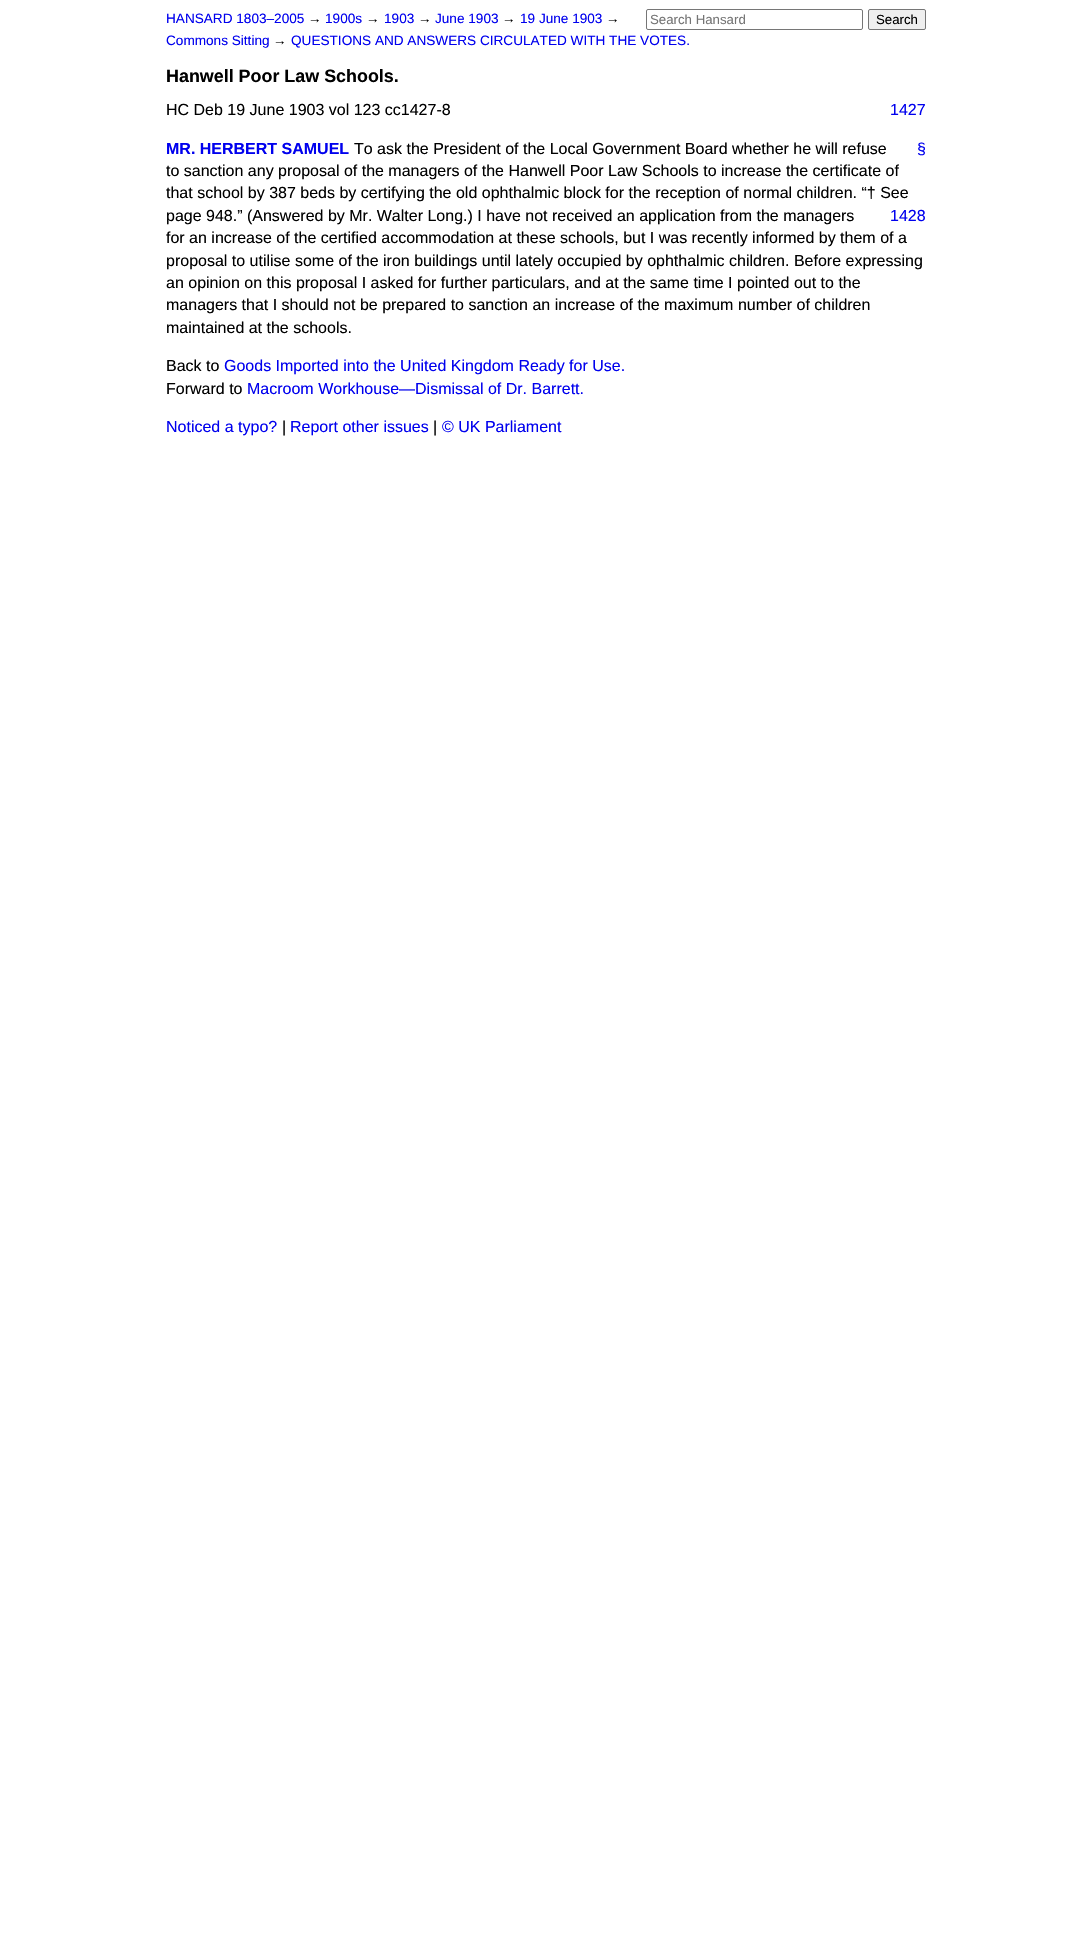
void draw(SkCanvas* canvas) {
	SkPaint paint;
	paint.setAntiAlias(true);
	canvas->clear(0xffffffff);
	SkFont f1(fontMgr->matchFamilyStyle("Liberation Sans", SkFontStyle::Normal()), 13.6);
	f1.setSubpixel(true);
	paint.setColor(0xff0000ee);
	canvas->drawString("HANSARD 1803–2005", 166, 23, f1, paint);
	paint.setColor(0xff000000);
	canvas->drawString("→", 308, 23, f1, paint);
	paint.setColor(0xff0000ee);
	canvas->drawString("1900s", 325, 23, f1, paint);
	paint.setColor(0xff000000);
	canvas->drawString("→", 366, 23, f1, paint);
	paint.setColor(0xff0000ee);
	canvas->drawString("1903", 384, 23, f1, paint);
	paint.setColor(0xff000000);
	canvas->drawString("→", 418, 23, f1, paint);
	paint.setColor(0xff0000ee);
	canvas->drawString("June 1903", 435, 23, f1, paint);
	paint.setColor(0xff000000);
	canvas->drawString("→", 502, 23, f1, paint);
	paint.setColor(0xff0000ee);
	canvas->drawString("19 June 1903", 520, 23, f1, paint);
	paint.setColor(0xff000000);
	canvas->drawString("→", 606, 23, f1, paint);
	paint.setColor(0xff0000ee);
	canvas->drawString("Commons Sitting", 166, 45, f1, paint);
	paint.setColor(0xff000000);
	canvas->drawString("→", 273, 45, f1, paint);
	paint.setColor(0xff0000ee);
	canvas->drawString("QUESTIONS AND ANSWERS CIRCULATED WITH THE VOTES.", 291, 45, f1, paint);
	paint.setStroke(true);
	paint.setStrokeWidth(1);
	paint.setColor(0xff767676);
	canvas->drawRoundRect(SkRect::MakeXYWH(646.5, 9.5, 216, 20), 1.5, 1.5, paint);
	SkFont f2(fontMgr->matchFamilyStyle("Liberation Sans", SkFontStyle::Normal()), 13.25);
	f2.setSubpixel(true);
	paint.setStroke(false);
	paint.setColor(0xff757575);
	canvas->drawString("Search Hansard", 650, 24, f2, paint);
	paint.setColor(0xffefefef);
	canvas->drawRoundRect(SkRect::MakeXYWH(868.5, 9.5, 57, 20), 1.5, 1.5, paint);
	paint.setStroke(true);
	paint.setColor(0xff767676);
	canvas->drawRoundRect(SkRect::MakeXYWH(868.5, 9.5, 57, 20), 1.5, 1.5, paint);
	paint.setStroke(false);
	paint.setColor(0xff000000);
	canvas->drawString("Search", 876, 24, f2, paint);
	SkFont f3(fontMgr->matchFamilyStyle("Liberation Sans", SkFontStyle::Bold()), 17.9);
	f3.setSubpixel(true);
	canvas->drawString("Hanwell Poor Law Schools.", 166, 82, f3, paint);
	SkFont f4(fontMgr->matchFamilyStyle("Liberation Sans", SkFontStyle::Normal()), 16);
	f4.setSubpixel(true);
	canvas->drawString("HC Deb 19 June 1903 vol 123 cc1427-8", 166, 115, f4, paint);
	paint.setColor(0xff0000ee);
	canvas->drawString("1427", 890, 115, f4, paint);
	paint.setColor(0xff000000);
	canvas->drawString("To ask the President of the Local Government Board whether he will refuse", 354, 154, f4, paint);
	canvas->drawString("to sanction any proposal of the managers of the Hanwell Poor Law Schools to increase the certificate of", 166, 176, f4, paint);
	canvas->drawString("that school by 387 beds by certifying the old ophthalmic block for the reception of normal children. “† See", 166, 198, f4, paint);
	canvas->drawString("page 948.” (Answered by Mr. Walter Long.) I have not received an application from the managers", 166, 221, f4, paint);
	paint.setColor(0xff0000ee);
	canvas->drawString("1428", 890, 221, f4, paint);
	paint.setColor(0xff000000);
	canvas->drawString("for an increase of the certified accommodation at these schools, but I was recently informed by them of a", 166, 243, f4, paint);
	canvas->drawString("proposal to utilise some of the iron buildings until lately occupied by ophthalmic children. Before expressing", 166, 266, f4, paint);
	canvas->drawString("an opinion on this proposal I asked for further particulars, and at the same time I pointed out to the", 166, 288, f4, paint);
	canvas->drawString("managers that I should not be prepared to sanction an increase of the maximum number of children", 166, 310, f4, paint);
	canvas->drawString("maintained at the schools.", 166, 333, f4, paint);
	SkFont f5(fontMgr->matchFamilyStyle("Liberation Sans", SkFontStyle::Bold()), 16);
	f5.setSubpixel(true);
	paint.setColor(0xff0000ee);
	canvas->drawString("MR. HERBERT SAMUEL", 166, 154, f5, paint);
	canvas->drawString("§", 917, 154, f4, paint);
	paint.setColor(0xff000000);
	canvas->drawString("Back to", 166, 371, f4, paint);
	paint.setColor(0xff0000ee);
	canvas->drawString("Goods Imported into the United Kingdom Ready for Use.", 224, 371, f4, paint);
	paint.setColor(0xff000000);
	canvas->drawString("Forward to", 166, 394, f4, paint);
	paint.setColor(0xff0000ee);
	canvas->drawString("Macroom Workhouse—Dismissal of Dr. Barrett.", 247, 394, f4, paint);
	canvas->drawString("Noticed a typo?", 166, 432, f4, paint);
	paint.setColor(0xff000000);
	canvas->drawString("|", 282, 432, f4, paint);
	paint.setColor(0xff0000ee);
	canvas->drawString("Report other issues", 290, 432, f4, paint);
	paint.setColor(0xff000000);
	canvas->drawString("|", 433, 432, f4, paint);
	paint.setColor(0xff0000ee);
	canvas->drawString("© UK Parliament", 442, 432, f4, paint);
}
